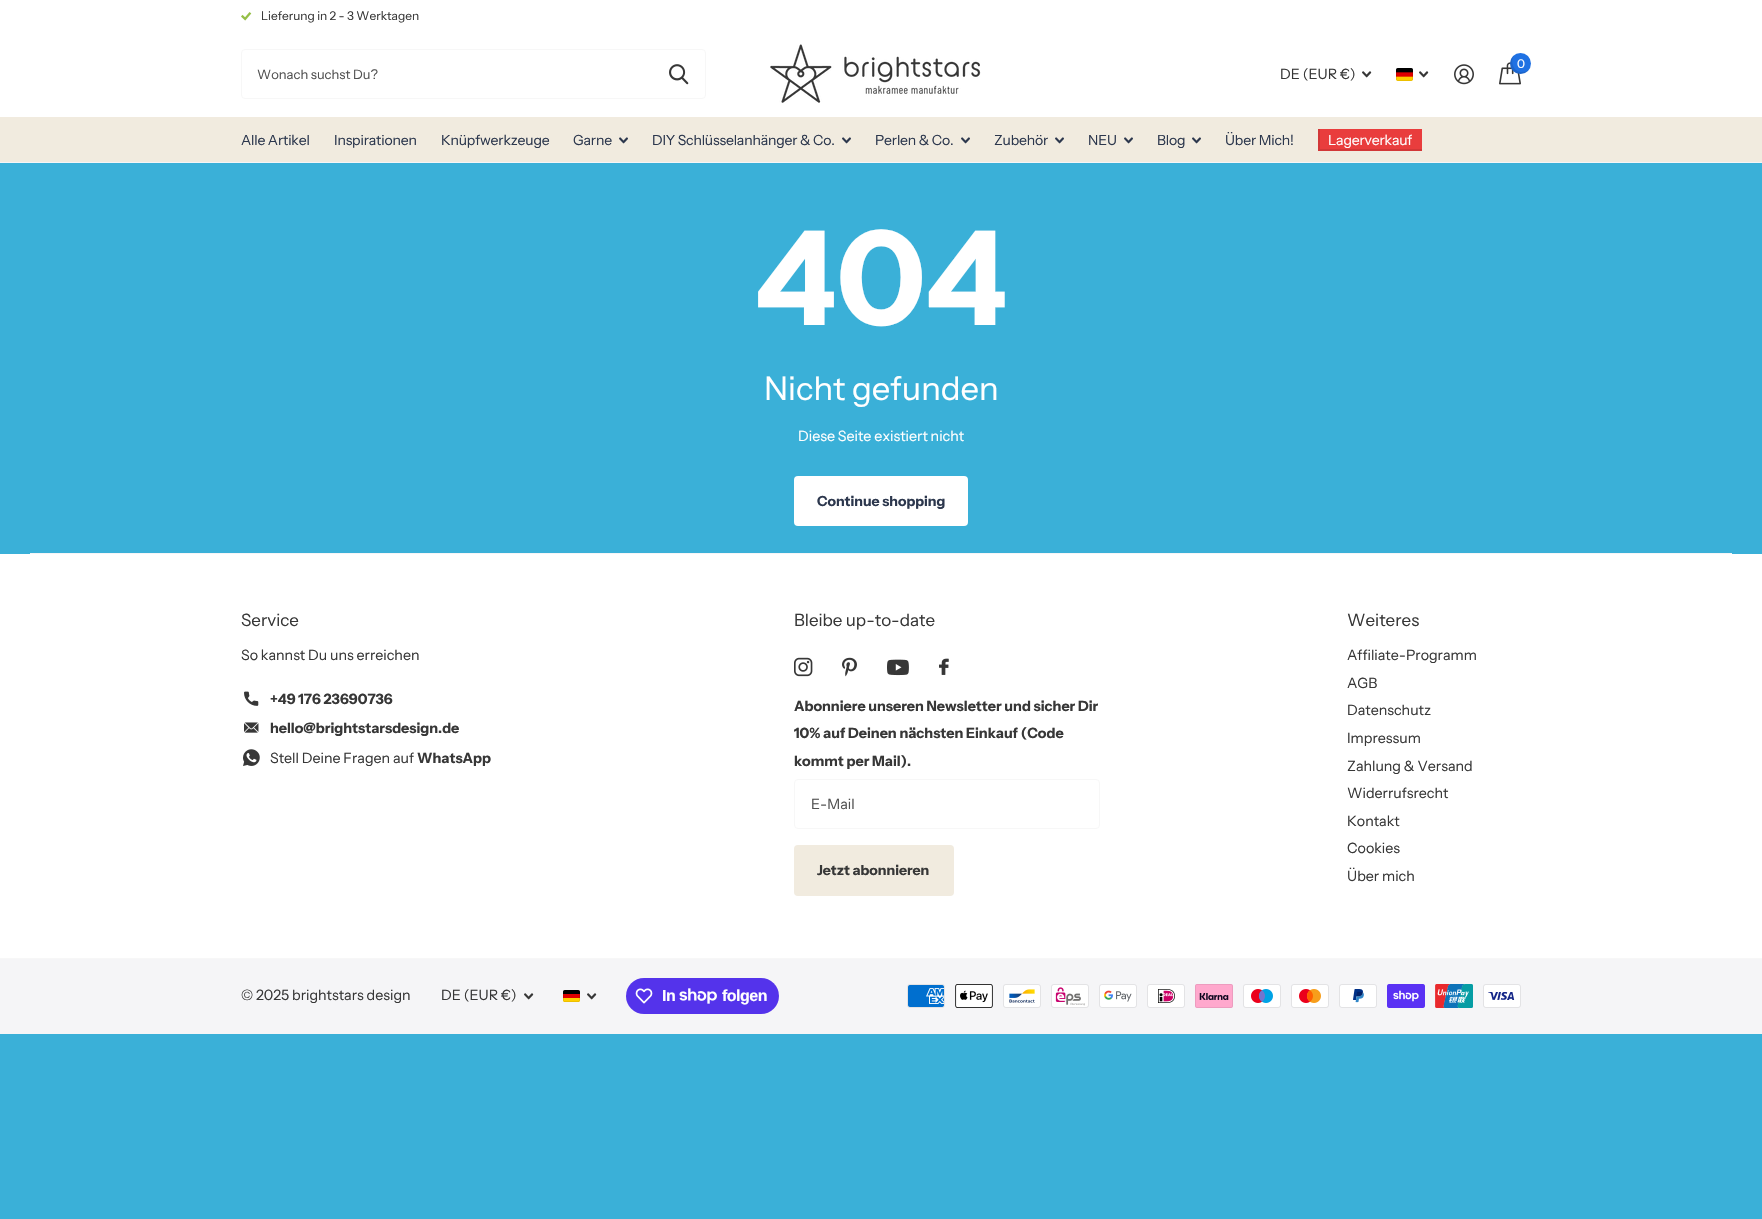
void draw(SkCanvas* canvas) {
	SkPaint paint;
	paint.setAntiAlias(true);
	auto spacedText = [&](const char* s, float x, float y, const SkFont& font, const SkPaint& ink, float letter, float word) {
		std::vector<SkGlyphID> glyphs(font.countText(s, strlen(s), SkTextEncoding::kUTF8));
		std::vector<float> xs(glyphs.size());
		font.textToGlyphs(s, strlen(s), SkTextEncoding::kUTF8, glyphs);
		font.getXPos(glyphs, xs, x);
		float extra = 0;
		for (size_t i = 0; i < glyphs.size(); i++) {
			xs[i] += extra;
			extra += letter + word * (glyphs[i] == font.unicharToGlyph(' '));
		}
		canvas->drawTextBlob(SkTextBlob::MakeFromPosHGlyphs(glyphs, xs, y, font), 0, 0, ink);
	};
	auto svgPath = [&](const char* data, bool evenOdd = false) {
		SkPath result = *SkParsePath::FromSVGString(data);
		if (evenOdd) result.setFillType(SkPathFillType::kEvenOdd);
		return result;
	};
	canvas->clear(0xffffffff);
	paint.setColor(0xfff5f5f7);
	canvas->drawRect(SkRect::MakeXYWH(0, 162, 1762, 1), paint);
	canvas->drawImageRect(SkImages::DeferredFromEncodedData(SkData::MakeFromFileName("img1.png")), SkRect::MakeXYWH(241, 12, 11, 9), SkSamplingOptions());
	SkFont f1(fontMgr->matchFamilyStyle("Instrument Sans", SkFontStyle::Normal()), 12);
	f1.setSubpixel(true);
	paint.setColor(0xff373737);
	canvas->drawString("Lieferung in 2 - 3 Werktagen", 261, 20, f1, paint);
	paint.setStroke(true);
	paint.setStrokeWidth(1);
	paint.setColor(0xfff7f7f7);
	canvas->drawRoundRect(SkRect::MakeXYWH(241.5, 49.5, 464, 49), 3.5, 3.5, paint);
	SkFont f2(fontMgr->matchFamilyStyle("Instrument Sans", SkFontStyle::Normal()), 13);
	f2.setSubpixel(true);
	paint.setStroke(false);
	paint.setColor(0xff515151);
	canvas->drawString("Wonach suchst Du?", 257, 79, f2, paint);
	canvas->drawImageRect(SkImages::DeferredFromEncodedData(SkData::MakeFromFileName("img2.png")), SkRect::MakeXYWH(669, 64, 20, 21), SkSamplingOptions());
	canvas->drawImageRect(SkImages::DeferredFromEncodedData(SkData::MakeFromFileName("img3.png")), SkRect::MakeXYWH(770, 44, 211, 59), SkSamplingOptions());
	SkFont f3(fontMgr->matchFamilyStyle("Instrument Sans", SkFontStyle::Normal()), 14.25);
	f3.setSubpixel(true);
	paint.setColor(0xff373737);
	canvas->drawString("DE (EUR €)", 1280, 79, f3, paint);
	canvas->drawImageRect(SkImages::DeferredFromEncodedData(SkData::MakeFromFileName("img4.png")), SkRect::MakeXYWH(1362, 71, 10, 7), SkSamplingOptions());
	canvas->drawImageRect(SkImages::DeferredFromEncodedData(SkData::MakeFromFileName("img5.png")), SkRect::MakeXYWH(1396, 68, 17, 13), SkSamplingOptions());
	canvas->drawImageRect(SkImages::DeferredFromEncodedData(SkData::MakeFromFileName("img4.png")), SkRect::MakeXYWH(1419, 71, 10, 7), SkSamplingOptions());
	canvas->drawImageRect(SkImages::DeferredFromEncodedData(SkData::MakeFromFileName("img6.png")), SkRect::MakeXYWH(1454, 64, 20, 21), SkSamplingOptions());
	canvas->drawImageRect(SkImages::DeferredFromEncodedData(SkData::MakeFromFileName("img7.png")), SkRect::MakeXYWH(1499, 62, 22, 23), SkSamplingOptions());
	paint.setColor(0xff1f71e3);
	canvas->drawCircle(1520.5, 63.5, 10.5, paint);
	paint.setColor(0x1a000000);
	canvas->drawPath(svgPath("M1529 69.5C1527.5 71 1525 72 1522 72C1513 72 1510 61.5 1514 55.5C1509 59 1508.5 66.5 1513 71C1517.5 75.5 1525.5 75 1529 69.5Z"), paint);
	paint.setColor(0xffffffff);
	canvas->drawString("0", 1517, 68, f1, paint);
	paint.setColor(0xfff1ebdf);
	canvas->drawRect(SkRect::MakeXYWH(0, 117, 1762, 45), paint);
	SkFont f4(fontMgr->matchFamilyStyle("Instrument Sans", SkFontStyle::Normal()), 14);
	f4.setSubpixel(true);
	paint.setColor(0xff2c374d);
	spacedText("Alle Artikel", 241, 145, f4, paint, -0.15, 0);
	spacedText("Inspirationen", 334, 145, f4, paint, -0.15, 0);
	spacedText("Knüpfwerkzeuge", 441, 145, f4, paint, -0.15, 0);
	spacedText("Garne", 573, 145, f4, paint, -0.15, 0);
	canvas->drawImageRect(SkImages::DeferredFromEncodedData(SkData::MakeFromFileName("img8.png")), SkRect::MakeXYWH(619, 137, 9, 7), SkSamplingOptions());
	spacedText("DIY Schlüsselanhänger & Co.", 652, 145, f4, paint, -0.15, 0);
	canvas->drawImageRect(SkImages::DeferredFromEncodedData(SkData::MakeFromFileName("img8.png")), SkRect::MakeXYWH(842, 137, 9, 7), SkSamplingOptions());
	spacedText("Perlen & Co.", 875, 145, f4, paint, -0.15, 0);
	canvas->drawImageRect(SkImages::DeferredFromEncodedData(SkData::MakeFromFileName("img8.png")), SkRect::MakeXYWH(961, 137, 9, 7), SkSamplingOptions());
	spacedText("Zubehör", 994, 145, f4, paint, -0.15, 0);
	canvas->drawImageRect(SkImages::DeferredFromEncodedData(SkData::MakeFromFileName("img8.png")), SkRect::MakeXYWH(1055, 137, 9, 7), SkSamplingOptions());
	spacedText("NEU", 1088, 145, f4, paint, -0.15, 0);
	canvas->drawImageRect(SkImages::DeferredFromEncodedData(SkData::MakeFromFileName("img8.png")), SkRect::MakeXYWH(1124, 137, 9, 7), SkSamplingOptions());
	spacedText("Blog", 1157, 145, f4, paint, -0.15, 0);
	canvas->drawImageRect(SkImages::DeferredFromEncodedData(SkData::MakeFromFileName("img8.png")), SkRect::MakeXYWH(1192, 137, 9, 7), SkSamplingOptions());
	spacedText("Über Mich!", 1225, 145, f4, paint, -0.15, 0);
	paint.setColor(0xffe93d3d);
	canvas->drawRect(SkRect::MakeXYWH(1320, 129, 102, 20), paint);
	canvas->save();
	canvas->clipRect(SkRect::MakeXYWH(1318, 129, 104, 22));
	paint.setColor(0xffd23737);
	canvas->drawPath(svgPath("M1219 30H1521V250H1219ZM1320 127H1424V149H1320Z", true), paint);
	canvas->restore();
	paint.setColor(0xffffffff);
	spacedText("Lagerverkauf", 1328, 145, f4, paint, -0.15, 0);
	paint.setColor(0xff3ab0d8);
	canvas->drawRect(SkRect::MakeXYWH(0, 163, 1762, 1056), paint);
	SkFont f5(fontMgr->matchFamilyStyle("Instrument Sans", SkFontStyle::Bold()), 131);
	f5.setSubpixel(true);
	paint.setColor(0xffffffff);
	canvas->drawString("404", 755, 325, f5, paint);
	SkFont f6(fontMgr->matchFamilyStyle("Instrument Sans", SkFontStyle::Normal()), 32.75);
	f6.setSubpixel(true);
	canvas->drawString("Nicht gefunden", 764, 400, f6, paint);
	canvas->drawString("Diese Seite existiert nicht", 798, 441, f3, paint);
	canvas->drawRoundRect(SkRect::MakeXYWH(794, 476, 174, 50), 4, 4, paint);
	SkFont f7(fontMgr->matchFamilyStyle("Instrument Sans", SkFontStyle::Bold()), 14);
	f7.setSubpixel(true);
	paint.setColor(0xff2c374d);
	canvas->drawString("Continue shopping", 817, 506, f7, paint);
	paint.setColor(0xfff5f5f7);
	canvas->drawRect(SkRect::MakeXYWH(30, 553, 1702, 1), paint);
	paint.setColor(0xffffffff);
	canvas->drawRect(SkRect::MakeXYWH(0, 554, 1762, 404), paint);
	SkFont f8(fontMgr->matchFamilyStyle("Instrument Sans", SkFontStyle::Normal()), 17);
	f8.setSubpixel(true);
	paint.setColor(0xff373737);
	canvas->drawString("Service", 241, 626, f8, paint);
	canvas->drawString("So kannst Du uns erreichen", 241, 660, f3, paint);
	canvas->drawImageRect(SkImages::DeferredFromEncodedData(SkData::MakeFromFileName("img9.png")), SkRect::MakeXYWH(244, 691, 15, 15), SkSamplingOptions());
	SkFont f9(fontMgr->matchFamilyStyle("Instrument Sans", SkFontStyle::Bold()), 14.25);
	f9.setSubpixel(true);
	canvas->drawString("+49 176 23690736", 270, 704, f9, paint);
	canvas->drawImageRect(SkImages::DeferredFromEncodedData(SkData::MakeFromFileName("img10.png")), SkRect::MakeXYWH(244, 722, 15, 11), SkSamplingOptions());
	canvas->drawString("hello@brightstarsdesign.de", 270, 733, f9, paint);
	canvas->drawImageRect(SkImages::DeferredFromEncodedData(SkData::MakeFromFileName("img11.png")), SkRect::MakeXYWH(243, 749, 17, 17), SkSamplingOptions());
	canvas->drawString("Stell Deine Fragen auf", 270, 763, f3, paint);
	canvas->drawString("WhatsApp", 417, 763, f9, paint);
	canvas->drawString("Bleibe up-to-date", 794, 626, f8, paint);
	canvas->drawImageRect(SkImages::DeferredFromEncodedData(SkData::MakeFromFileName("img12.png")), SkRect::MakeXYWH(794, 657, 19, 20), SkSamplingOptions());
	canvas->drawImageRect(SkImages::DeferredFromEncodedData(SkData::MakeFromFileName("img13.png")), SkRect::MakeXYWH(842, 657, 15, 20), SkSamplingOptions());
	canvas->drawImageRect(SkImages::DeferredFromEncodedData(SkData::MakeFromFileName("img14.png")), SkRect::MakeXYWH(887, 659, 22, 17), SkSamplingOptions());
	canvas->drawImageRect(SkImages::DeferredFromEncodedData(SkData::MakeFromFileName("img15.png")), SkRect::MakeXYWH(939, 658, 10, 17), SkSamplingOptions());
	canvas->drawString("Abonniere unseren Newsletter und sicher Dir", 794, 711, f9, paint);
	canvas->drawString("10% auf Deinen nächsten Einkauf (Code", 794, 738, f9, paint);
	canvas->drawString("kommt per Mail).", 794, 766, f9, paint);
	paint.setStroke(true);
	paint.setColor(0xfff7f7f7);
	canvas->drawRoundRect(SkRect::MakeXYWH(794.5, 779.5, 305, 49), 3.5, 3.5, paint);
	paint.setStroke(false);
	paint.setColor(0xff515151);
	canvas->drawString("E-Mail", 811, 809, f3, paint);
	paint.setColor(0xfff1ebdf);
	canvas->drawRoundRect(SkRect::MakeXYWH(794, 845, 160, 51), 4, 4, paint);
	paint.setColor(0xff373737);
	canvas->drawString("Jetzt abonnieren", 817, 875, f7, paint);
	canvas->drawString("Weiteres", 1347, 626, f8, paint);
	canvas->drawString("Affiliate-Programm", 1347, 660, f3, paint);
	canvas->drawString("AGB", 1347, 688, f3, paint);
	canvas->drawString("Datenschutz", 1347, 715, f3, paint);
	canvas->drawString("Impressum", 1347, 743, f3, paint);
	canvas->drawString("Zahlung & Versand", 1347, 771, f3, paint);
	canvas->drawString("Widerrufsrecht", 1347, 798, f3, paint);
	canvas->drawString("Kontakt", 1347, 826, f3, paint);
	canvas->drawString("Cookies", 1347, 853, f3, paint);
	canvas->drawString("Über mich", 1347, 881, f3, paint);
	paint.setColor(0xfff5f5f7);
	canvas->drawRect(SkRect::MakeXYWH(0, 959, 1762, 75), paint);
	paint.setColor(0xfff7f7f7);
	canvas->drawRect(SkRect::MakeXYWH(0, 958, 1762, 1), paint);
	paint.setColor(0xff373737);
	canvas->drawString("© 2025 brightstars design", 241, 1000, f3, paint);
	canvas->drawString("DE (EUR €)", 441, 1000, f3, paint);
	canvas->drawImageRect(SkImages::DeferredFromEncodedData(SkData::MakeFromFileName("img16.png")), SkRect::MakeXYWH(524, 993, 10, 7), SkSamplingOptions());
	canvas->drawImageRect(SkImages::DeferredFromEncodedData(SkData::MakeFromFileName("img17.png")), SkRect::MakeXYWH(563, 990, 17, 12), SkSamplingOptions());
	canvas->drawImageRect(SkImages::DeferredFromEncodedData(SkData::MakeFromFileName("img16.png")), SkRect::MakeXYWH(587, 993, 10, 7), SkSamplingOptions());
	paint.setColor(0xff5433eb);
	canvas->drawRoundRect(SkRect::MakeXYWH(626, 978, 153, 36), 18, 18, paint);
	canvas->drawImageRect(SkImages::DeferredFromEncodedData(SkData::MakeFromFileName("img18.png")), SkRect::MakeXYWH(635, 988, 18, 16), SkSamplingOptions());
	SkFont f10(fontMgr->matchFamilyStyle("Liberation Sans", SkFontStyle::Bold()), 16);
	f10.setSubpixel(true);
	paint.setColor(0xffffffff);
	spacedText("In", 662, 1001, f10, paint, -0.5, 0);
	canvas->drawImageRect(SkImages::DeferredFromEncodedData(SkData::MakeFromFileName("img19.png")), SkRect::MakeXYWH(679, 988, 38, 16), SkSamplingOptions());
	spacedText("folgen", 722, 1001, f10, paint, -0.5, 0);
	canvas->drawImageRect(SkImages::DeferredFromEncodedData(SkData::MakeFromFileName("img20.png")), SkRect::MakeXYWH(907, 984, 38, 24), SkSamplingOptions());
	canvas->drawImageRect(SkImages::DeferredFromEncodedData(SkData::MakeFromFileName("img21.png")), SkRect::MakeXYWH(955, 984, 38, 24), SkSamplingOptions());
	canvas->drawImageRect(SkImages::DeferredFromEncodedData(SkData::MakeFromFileName("img22.png")), SkRect::MakeXYWH(1003, 984, 38, 24), SkSamplingOptions());
	canvas->drawImageRect(SkImages::DeferredFromEncodedData(SkData::MakeFromFileName("img23.png")), SkRect::MakeXYWH(1051, 984, 38, 24), SkSamplingOptions());
	canvas->drawImageRect(SkImages::DeferredFromEncodedData(SkData::MakeFromFileName("img24.png")), SkRect::MakeXYWH(1099, 984, 38, 24), SkSamplingOptions());
	canvas->drawImageRect(SkImages::DeferredFromEncodedData(SkData::MakeFromFileName("img25.png")), SkRect::MakeXYWH(1147, 984, 38, 24), SkSamplingOptions());
	canvas->drawImageRect(SkImages::DeferredFromEncodedData(SkData::MakeFromFileName("img26.png")), SkRect::MakeXYWH(1195, 984, 38, 24), SkSamplingOptions());
	canvas->drawImageRect(SkImages::DeferredFromEncodedData(SkData::MakeFromFileName("img27.png")), SkRect::MakeXYWH(1243, 984, 38, 24), SkSamplingOptions());
	canvas->drawImageRect(SkImages::DeferredFromEncodedData(SkData::MakeFromFileName("img28.png")), SkRect::MakeXYWH(1291, 984, 38, 24), SkSamplingOptions());
	canvas->drawImageRect(SkImages::DeferredFromEncodedData(SkData::MakeFromFileName("img29.png")), SkRect::MakeXYWH(1339, 984, 38, 24), SkSamplingOptions());
	canvas->drawImageRect(SkImages::DeferredFromEncodedData(SkData::MakeFromFileName("img30.png")), SkRect::MakeXYWH(1387, 984, 38, 24), SkSamplingOptions());
	canvas->drawImageRect(SkImages::DeferredFromEncodedData(SkData::MakeFromFileName("img31.png")), SkRect::MakeXYWH(1435, 984, 38, 24), SkSamplingOptions());
	canvas->drawImageRect(SkImages::DeferredFromEncodedData(SkData::MakeFromFileName("img32.png")), SkRect::MakeXYWH(1483, 984, 38, 24), SkSamplingOptions());
}
